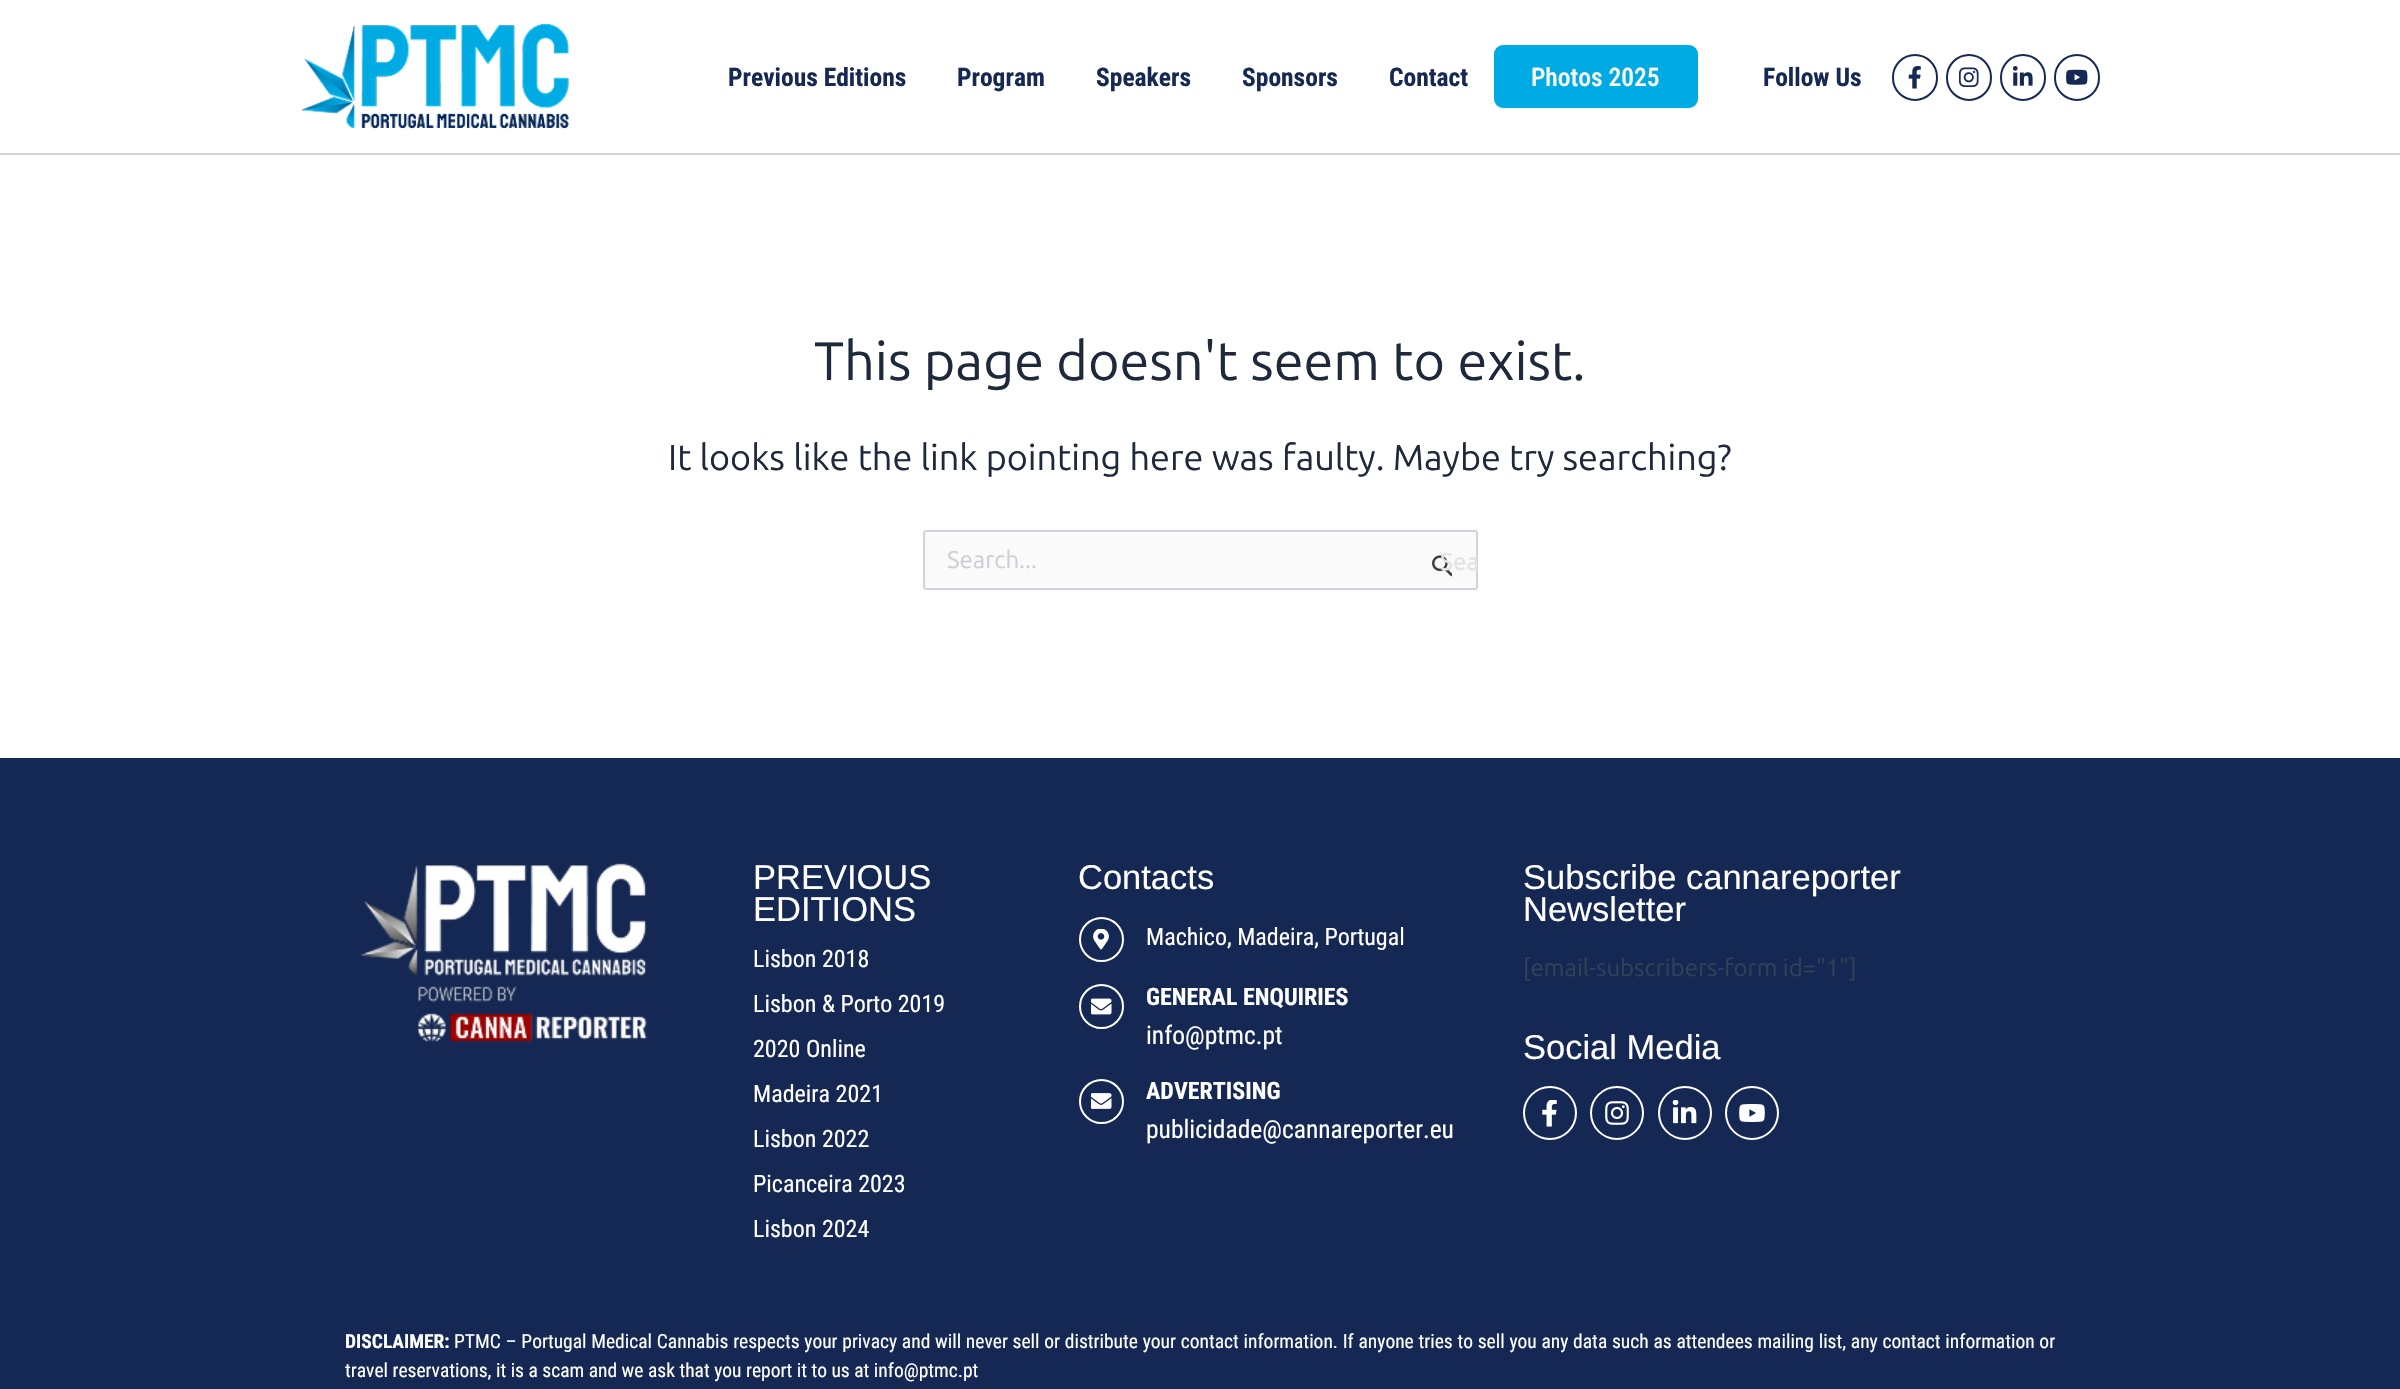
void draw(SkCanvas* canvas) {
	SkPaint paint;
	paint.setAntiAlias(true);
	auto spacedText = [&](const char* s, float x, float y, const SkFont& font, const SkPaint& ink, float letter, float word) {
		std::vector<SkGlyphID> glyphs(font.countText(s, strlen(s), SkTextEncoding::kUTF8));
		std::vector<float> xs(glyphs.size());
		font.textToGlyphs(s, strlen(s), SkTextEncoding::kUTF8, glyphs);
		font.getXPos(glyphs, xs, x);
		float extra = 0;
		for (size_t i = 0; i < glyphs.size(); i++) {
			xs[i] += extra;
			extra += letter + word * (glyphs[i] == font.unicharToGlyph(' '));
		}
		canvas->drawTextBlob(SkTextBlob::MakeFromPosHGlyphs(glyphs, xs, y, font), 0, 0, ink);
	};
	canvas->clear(0xffffffff);
	paint.setColor(0xffd1d5db);
	canvas->drawRect(SkRect::MakeXYWH(0, 153, 2400, 2), paint);
	canvas->drawImageRect(SkImages::DeferredFromEncodedData(SkData::MakeFromFileName("img1.png")), SkRect::MakeXYWH(301, 24, 268, 105), SkSamplingOptions());
	SkFont f1(fontMgr->matchFamilyStyle("Roboto Condensed", SkFontStyle::Bold()), 25.5);
	f1.setSubpixel(true);
	paint.setColor(0xff162854);
	canvas->drawString("Previous Editions", 728, 86, f1, paint);
	canvas->drawString("Program", 957, 86, f1, paint);
	canvas->drawString("Speakers", 1096, 86, f1, paint);
	canvas->drawString("Sponsors", 1242, 86, f1, paint);
	canvas->drawString("Contact", 1389, 86, f1, paint);
	paint.setColor(0xff00abe3);
	canvas->drawRoundRect(SkRect::MakeXYWH(1494, 45, 204, 63), 9, 9, paint);
	SkFont f2(fontMgr->matchFamilyStyle("Roboto Condensed", SkFontStyle(500, SkFontStyle::kNormal_Width, SkFontStyle::kUpright_Slant)), 25.5);
	f2.setSubpixel(true);
	paint.setColor(0xffffffff);
	canvas->drawString("Photos 2025", 1531, 86, f2, paint);
	paint.setColor(0xff162854);
	canvas->drawString("Follow Us", 1763, 86, f1, paint);
	paint.setStroke(true);
	paint.setStrokeWidth(2);
	canvas->drawRoundRect(SkRect::MakeXYWH(1893, 55, 44, 45), 22, 22, paint);
	canvas->drawImageRect(SkImages::DeferredFromEncodedData(SkData::MakeFromFileName("img2.png")), SkRect::MakeXYWH(1908, 66, 13, 23), SkSamplingOptions());
	canvas->drawRoundRect(SkRect::MakeXYWH(1947, 55, 44, 45), 22, 22, paint);
	canvas->drawImageRect(SkImages::DeferredFromEncodedData(SkData::MakeFromFileName("img3.png")), SkRect::MakeXYWH(1958, 67, 21, 20), SkSamplingOptions());
	canvas->drawRoundRect(SkRect::MakeXYWH(2001, 55, 44, 45), 22, 22, paint);
	canvas->drawImageRect(SkImages::DeferredFromEncodedData(SkData::MakeFromFileName("img4.png")), SkRect::MakeXYWH(2012, 66, 21, 20), SkSamplingOptions());
	canvas->drawRoundRect(SkRect::MakeXYWH(2055, 55, 44, 45), 22, 22, paint);
	canvas->drawImageRect(SkImages::DeferredFromEncodedData(SkData::MakeFromFileName("img5.png")), SkRect::MakeXYWH(2066, 69, 22, 16), SkSamplingOptions());
	SkFont f3(fontMgr->matchFamilyStyle("Ubuntu", SkFontStyle::Normal()), 54);
	f3.setSubpixel(true);
	paint.setStroke(false);
	paint.setColor(0xff1e293b);
	canvas->drawString("This page doesn't seem to exist.", 814, 380, f3, paint);
	SkFont f4(fontMgr->matchFamilyStyle("Ubuntu", SkFontStyle::Normal()), 36);
	f4.setSubpixel(true);
	canvas->drawString("It looks like the link pointing here was faulty. Maybe try searching?", 668, 470, f4, paint);
	paint.setColor(0xfffafafa);
	canvas->drawRoundRect(SkRect::MakeXYWH(924, 531, 553, 58), 2, 2, paint);
	paint.setStroke(true);
	paint.setColor(0xffd1d5db);
	canvas->drawRoundRect(SkRect::MakeXYWH(924, 531, 553, 58), 2, 2, paint);
	SkFont f5(fontMgr->matchFamilyStyle("Ubuntu", SkFontStyle::Normal()), 24);
	f5.setSubpixel(true);
	paint.setStroke(false);
	paint.setColor(0xffcbcfd5);
	canvas->drawString("Search...", 947, 568, f5, paint);
	canvas->drawImageRect(SkImages::DeferredFromEncodedData(SkData::MakeFromFileName("img6.png")), SkRect::MakeXYWH(1432, 555, 20, 22), SkSamplingOptions());
	SkFont f6(fontMgr->matchFamilyStyle("Ubuntu", SkFontStyle(500, SkFontStyle::kNormal_Width, SkFontStyle::kUpright_Slant)), 24);
	f6.setSubpixel(true);
	paint.setColor(0xffe3e3e4);
	canvas->drawString("Sea", 1440, 570, f6, paint);
	paint.setColor(0xff152854);
	canvas->drawRect(SkRect::MakeXYWH(0, 758, 2400, 631), paint);
	canvas->drawImageRect(SkImages::DeferredFromEncodedData(SkData::MakeFromFileName("img7.png")), SkRect::MakeXYWH(361, 863, 286, 180), SkSamplingOptions());
	SkFont f7(fontMgr->matchFamilyStyle("Liberation Sans", SkFontStyle::Normal()), 34.5);
	f7.setSubpixel(true);
	paint.setColor(0xffffffff);
	canvas->drawString("PREVIOUS", 753, 889, f7, paint);
	canvas->drawString("EDITIONS", 753, 921, f7, paint);
	SkFont f8(fontMgr->matchFamilyStyle("Roboto Condensed", SkFontStyle::Normal()), 24);
	f8.setSubpixel(true);
	canvas->drawString("Lisbon 2018", 753, 967, f8, paint);
	canvas->drawString("Lisbon & Porto 2019", 753, 1012, f8, paint);
	canvas->drawString("2020 Online", 753, 1057, f8, paint);
	canvas->drawString("Madeira 2021", 753, 1102, f8, paint);
	canvas->drawString("Lisbon 2022", 753, 1147, f8, paint);
	canvas->drawString("Picanceira 2023", 753, 1192, f8, paint);
	canvas->drawString("Lisbon 2024", 753, 1237, f8, paint);
	canvas->drawString("Contacts", 1078, 889, f7, paint);
	paint.setStroke(true);
	canvas->drawCircle(1101.5, 939.5, 21.5, paint);
	canvas->drawImageRect(SkImages::DeferredFromEncodedData(SkData::MakeFromFileName("img8.png")), SkRect::MakeXYWH(1093, 929, 16, 21), SkSamplingOptions());
	paint.setStroke(false);
	canvas->drawString("Machico, Madeira, Portugal", 1146, 945, f8, paint);
	paint.setStroke(true);
	canvas->drawCircle(1101.5, 1006.5, 21.5, paint);
	canvas->drawImageRect(SkImages::DeferredFromEncodedData(SkData::MakeFromFileName("img9.png")), SkRect::MakeXYWH(1091, 998, 21, 17), SkSamplingOptions());
	SkFont f9(fontMgr->matchFamilyStyle("Roboto Condensed", SkFontStyle::Bold()), 24);
	f9.setSubpixel(true);
	paint.setStroke(false);
	canvas->drawString("GENERAL ENQUIRIES", 1146, 1005, f9, paint);
	SkFont f10(fontMgr->matchFamilyStyle("Roboto Condensed", SkFontStyle::Normal()), 25.5);
	f10.setSubpixel(true);
	canvas->drawString("info@ptmc.pt", 1146, 1044, f10, paint);
	paint.setStroke(true);
	canvas->drawCircle(1101.5, 1101.5, 21.5, paint);
	canvas->drawImageRect(SkImages::DeferredFromEncodedData(SkData::MakeFromFileName("img10.png")), SkRect::MakeXYWH(1091, 1093, 21, 16), SkSamplingOptions());
	paint.setStroke(false);
	canvas->drawString("ADVERTISING", 1146, 1099, f9, paint);
	canvas->drawString("publicidade@cannareporter.eu", 1146, 1138, f10, paint);
	canvas->drawString("Subscribe cannareporter", 1523, 889, f7, paint);
	canvas->drawString("Newsletter", 1523, 921, f7, paint);
	paint.setColor(0xff334155);
	canvas->drawString("[email-subscribers-form id=\"1\"]", 1523, 976, f5, paint);
	paint.setColor(0xffffffff);
	canvas->drawString("Social Media", 1523, 1059, f7, paint);
	paint.setStroke(true);
	canvas->drawCircle(1550, 1113, 26, paint);
	canvas->drawImageRect(SkImages::DeferredFromEncodedData(SkData::MakeFromFileName("img11.png")), SkRect::MakeXYWH(1542, 1100, 15, 27), SkSamplingOptions());
	canvas->drawCircle(1617, 1113, 26, paint);
	canvas->drawImageRect(SkImages::DeferredFromEncodedData(SkData::MakeFromFileName("img12.png")), SkRect::MakeXYWH(1605, 1101, 24, 24), SkSamplingOptions());
	canvas->drawCircle(1685, 1113, 26, paint);
	canvas->drawImageRect(SkImages::DeferredFromEncodedData(SkData::MakeFromFileName("img13.png")), SkRect::MakeXYWH(1672, 1100, 25, 24), SkSamplingOptions());
	canvas->drawCircle(1752, 1113, 26, paint);
	canvas->drawImageRect(SkImages::DeferredFromEncodedData(SkData::MakeFromFileName("img14.png")), SkRect::MakeXYWH(1739, 1104, 26, 18), SkSamplingOptions());
	SkFont f11(fontMgr->matchFamilyStyle("Roboto Condensed", SkFontStyle::Bold()), 19.5);
	f11.setSubpixel(true);
	paint.setStroke(false);
	canvas->drawString("DISCLAIMER:", 345, 1348, f11, paint);
	SkFont f12(fontMgr->matchFamilyStyle("Roboto Condensed", SkFontStyle::Normal()), 19.5);
	f12.setSubpixel(true);
	spacedText("PTMC – Portugal Medical Cannabis respects your privacy and will never sell or distribute your contact information. If anyone tries to sell you any data such as attendees mailing list, any contact information or", 454, 1348, f12, paint, 0, 0.25);
	canvas->drawString("travel reservations, it is a scam and we ask that you report it to us at info@ptmc.pt", 345, 1377, f12, paint);
}
